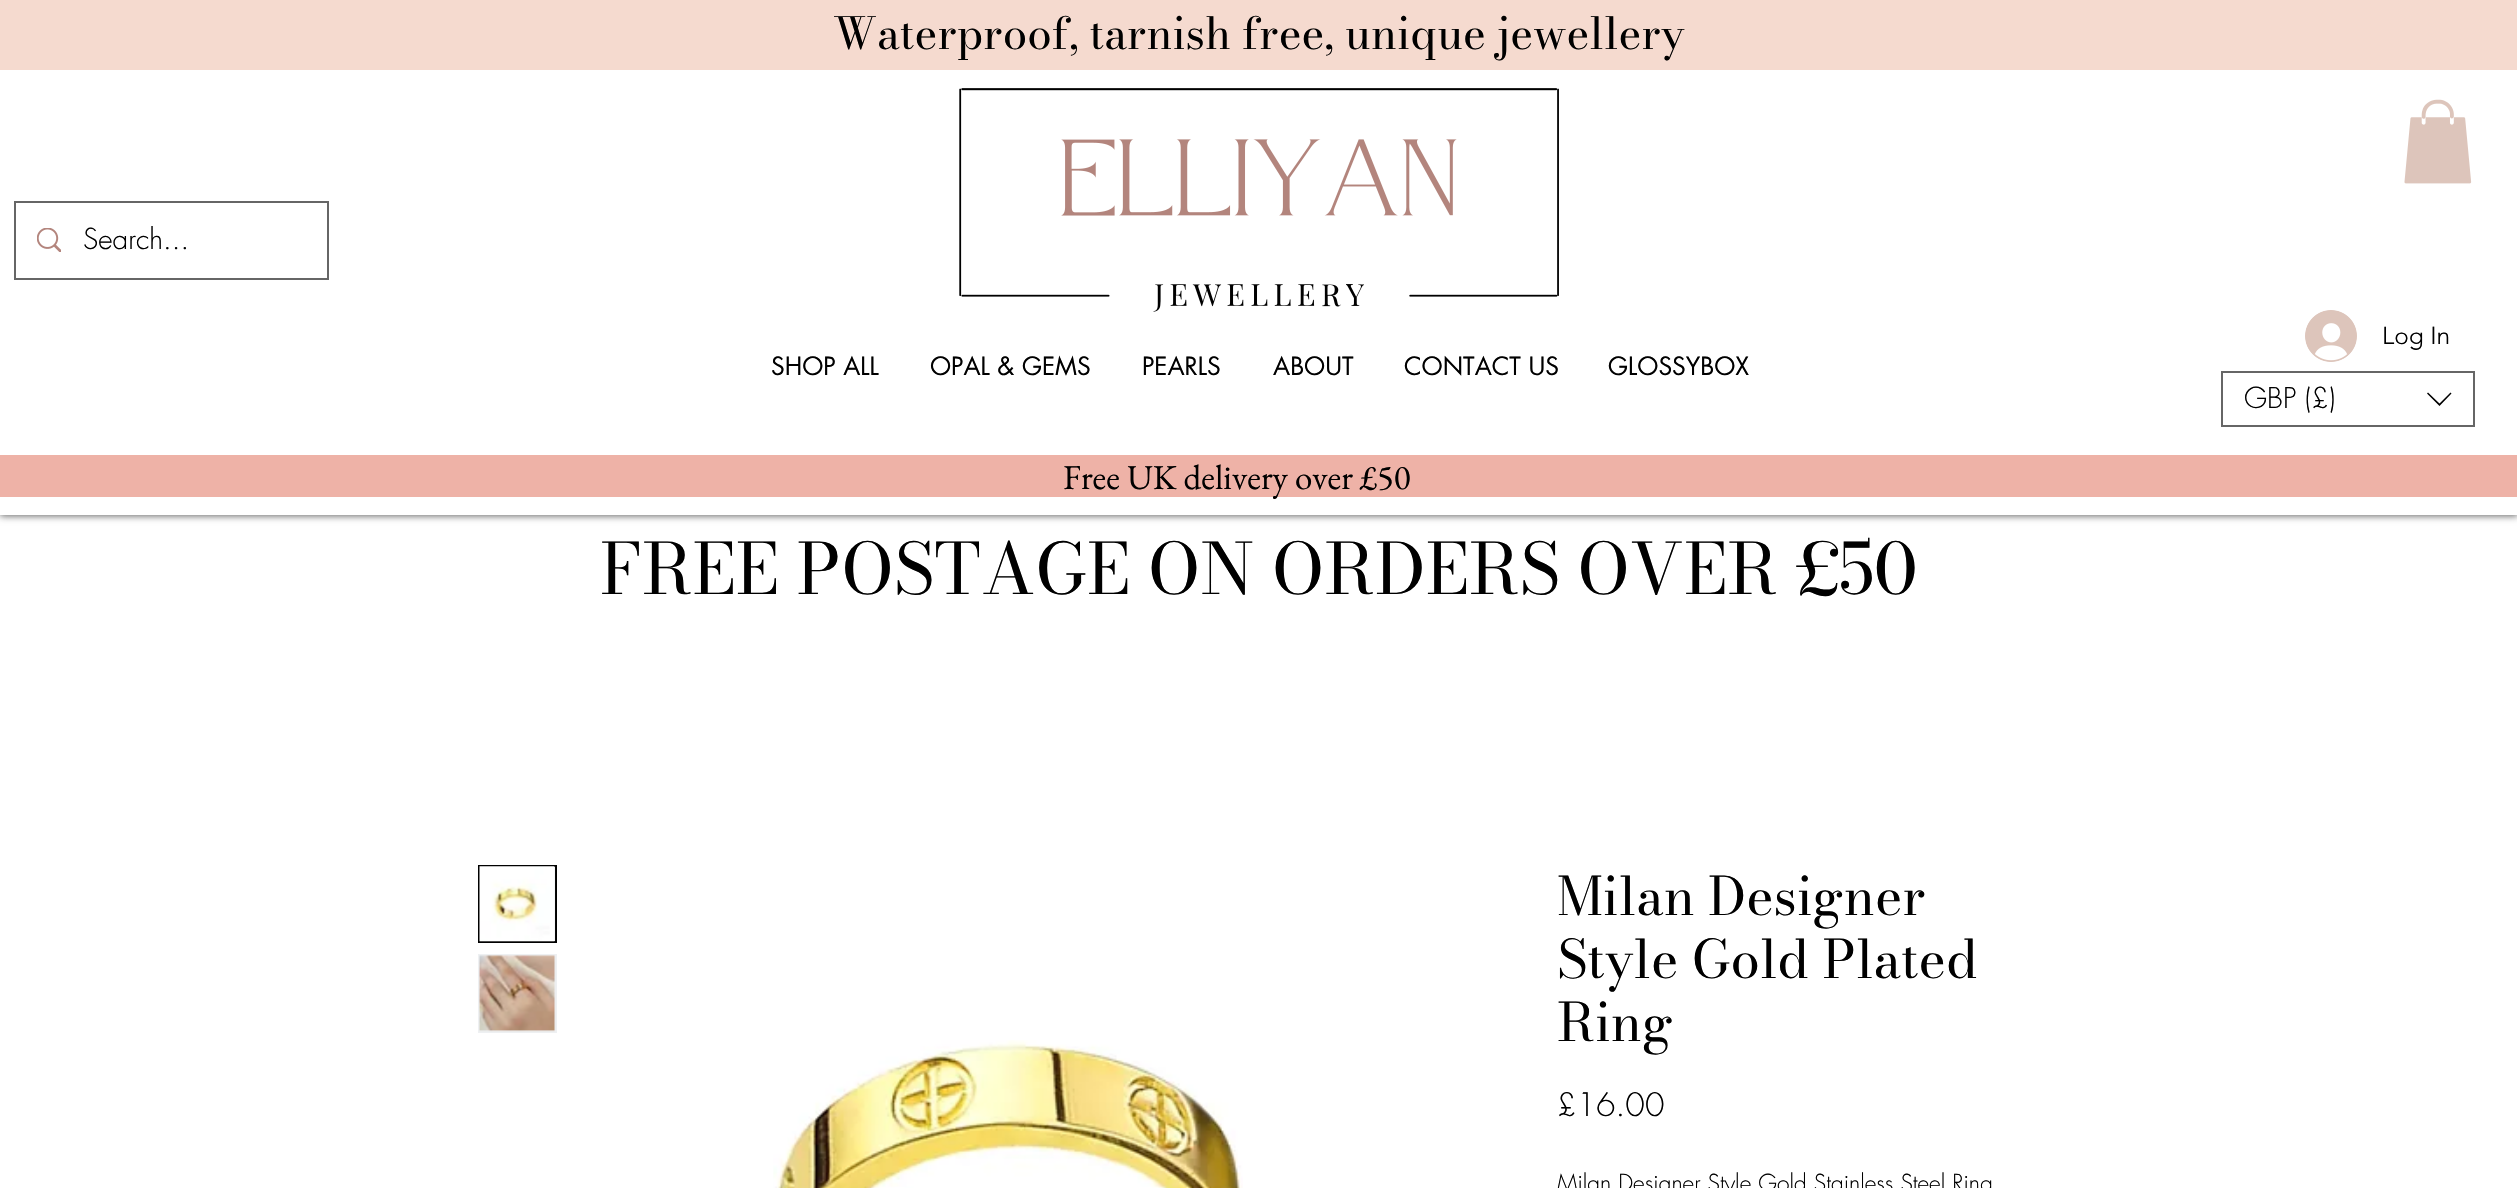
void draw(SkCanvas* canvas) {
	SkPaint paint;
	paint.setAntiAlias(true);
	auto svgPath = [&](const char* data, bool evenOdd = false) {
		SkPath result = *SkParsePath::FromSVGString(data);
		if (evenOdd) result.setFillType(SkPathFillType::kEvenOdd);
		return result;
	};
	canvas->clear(0xffffffff);
	paint.setColor(0x99000000);
	paint.setMaskFilter(SkMaskFilter::MakeBlur(kNormal_SkBlurStyle, 3.5));
	canvas->drawRect(SkRect::MakeXYWH(0, 2, 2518, 514), paint);
	paint.setMaskFilter(nullptr);
	paint.setColor(0xffffffff);
	canvas->drawRect(SkRect::MakeXYWH(0, 70, 2517, 445), paint);
	paint.setColor(0xfff5dacf);
	canvas->drawRect(SkRect::MakeXYWH(0, 0, 2517, 70), paint);
	SkFont f1(fontMgr->matchFamilyStyle("Bodoni Moda", SkFontStyle::Normal()), 43.75);
	f1.setSubpixel(true);
	paint.setColor(0xff000000);
	canvas->drawString("Waterproof, tarnish free, unique jewellery", 833, 49, f1, paint);
	paint.setStroke(true);
	paint.setStrokeWidth(2);
	paint.setColor(0xff666666);
	canvas->drawRect(SkRect::MakeXYWH(15, 202, 313, 77), paint);
	canvas->drawImageRect(SkImages::DeferredFromEncodedData(SkData::MakeFromFileName("img1.png")), SkRect::MakeXYWH(37, 228, 24, 24), SkSamplingOptions());
	SkFont f2(fontMgr->matchFamilyStyle("futura", SkFontStyle(300, SkFontStyle::kNormal_Width, SkFontStyle::kUpright_Slant)), 28);
	f2.setSubpixel(true);
	paint.setStroke(false);
	paint.setColor(0xff000000);
	canvas->drawString("Search...", 83, 249, f2, paint);
	canvas->drawImageRect(SkImages::DeferredFromEncodedData(SkData::MakeFromFileName("img2.png")), SkRect::MakeXYWH(959, 88, 600, 224), SkSamplingOptions());
	SkFont f3(fontMgr->matchFamilyStyle("futura", SkFontStyle::Normal()), 24.5);
	f3.setSubpixel(true);
	canvas->drawString("SHOP ALL", 771, 375, f3, paint);
	canvas->drawString("OPAL & GEMS", 930, 375, f3, paint);
	canvas->drawString("PEARLS", 1142, 375, f3, paint);
	canvas->drawString("ABOUT", 1273, 375, f3, paint);
	canvas->drawString("CONTACT US", 1404, 375, f3, paint);
	canvas->drawString("GLOSSYBOX", 1608, 375, f3, paint);
	canvas->drawImageRect(SkImages::DeferredFromEncodedData(SkData::MakeFromFileName("img3.png")), SkRect::MakeXYWH(2404, 99, 68, 85), SkSamplingOptions());
	canvas->drawImageRect(SkImages::DeferredFromEncodedData(SkData::MakeFromFileName("img4.png")), SkRect::MakeXYWH(2305, 310, 52, 52), SkSamplingOptions());
	SkFont f4(fontMgr->matchFamilyStyle("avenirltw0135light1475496", SkFontStyle(300, SkFontStyle::kNormal_Width, SkFontStyle::kUpright_Slant)), 24.5);
	f4.setSubpixel(true);
	canvas->drawString("Log In", 2382, 344, f4, paint);
	paint.setStroke(true);
	paint.setColor(0xff666666);
	canvas->drawRect(SkRect::MakeXYWH(2222, 372, 252, 54), paint);
	paint.setStroke(false);
	paint.setColor(0xff000000);
	canvas->drawString("GBP (£)", 2244, 408, f2, paint);
	canvas->drawPath(svgPath("M2450.5 392.5L2451.5 393.5L2439.5 406L2427 393.5L2428 392.5L2439.5 403.5Z", true), paint);
	paint.setColor(0xffeeb2a7);
	canvas->drawRect(SkRect::MakeXYWH(0, 455, 2517, 42), paint);
	SkFont f5(fontMgr->matchFamilyStyle("EB Garamond", SkFontStyle::Normal()), 35);
	f5.setSubpixel(true);
	paint.setColor(0xff000000);
	canvas->drawString("Free UK delivery over £50", 1063, 489, f5, paint);
	SkFont f6(fontMgr->matchFamilyStyle("Bodoni Moda", SkFontStyle::Normal()), 70);
	f6.setSubpixel(true);
	canvas->drawString("FREE POSTAGE ON ORDERS OVER £50", 600, 594, f6, paint);
	paint.setColor(0xffeef0f2);
	canvas->drawRect(SkRect::MakeXYWH(554, 867, 1, 74), paint);
	paint.setStroke(true);
	paint.setColor(0xff000000);
	canvas->drawRect(SkRect::MakeXYWH(479, 866, 77, 76), paint);
	canvas->drawImageRect(SkImages::DeferredFromEncodedData(SkData::MakeFromFileName("img5.png")), SkRect::MakeXYWH(479, 866, 77, 76), SkSamplingOptions());
	paint.setStroke(false);
	paint.setColor(0xffeef0f2);
	canvas->drawRect(SkRect::MakeXYWH(478, 954, 79, 79), paint);
	canvas->drawImageRect(SkImages::DeferredFromEncodedData(SkData::MakeFromFileName("img6.png")), SkRect::MakeXYWH(479, 955, 77, 77), SkSamplingOptions());
	canvas->drawImageRect(SkImages::DeferredFromEncodedData(SkData::MakeFromFileName("img7.png")), SkRect::MakeXYWH(773, 1040, 470, 148), SkSamplingOptions());
	SkFont f7(fontMgr->matchFamilyStyle("Bodoni Moda", SkFontStyle::Normal()), 52.5);
	f7.setSubpixel(true);
	paint.setColor(0xff000000);
	canvas->drawString("Milan Designer", 1557, 915, f7, paint);
	canvas->drawString("Style Gold Plated", 1557, 978, f7, paint);
	canvas->drawString("Ring", 1557, 1041, f7, paint);
	SkFont f8(fontMgr->matchFamilyStyle("futura", SkFontStyle(300, SkFontStyle::kNormal_Width, SkFontStyle::kUpright_Slant)), 31.5);
	f8.setSubpixel(true);
	canvas->drawString("£16.00", 1557, 1116, f8, paint);
	SkFont f9(fontMgr->matchFamilyStyle("futura", SkFontStyle(300, SkFontStyle::kNormal_Width, SkFontStyle::kUpright_Slant)), 22.75);
	f9.setSubpixel(true);
	canvas->drawString("Milan Designer Style Gold Stainless Steel Ring", 1557, 1191, f9, paint);
}
